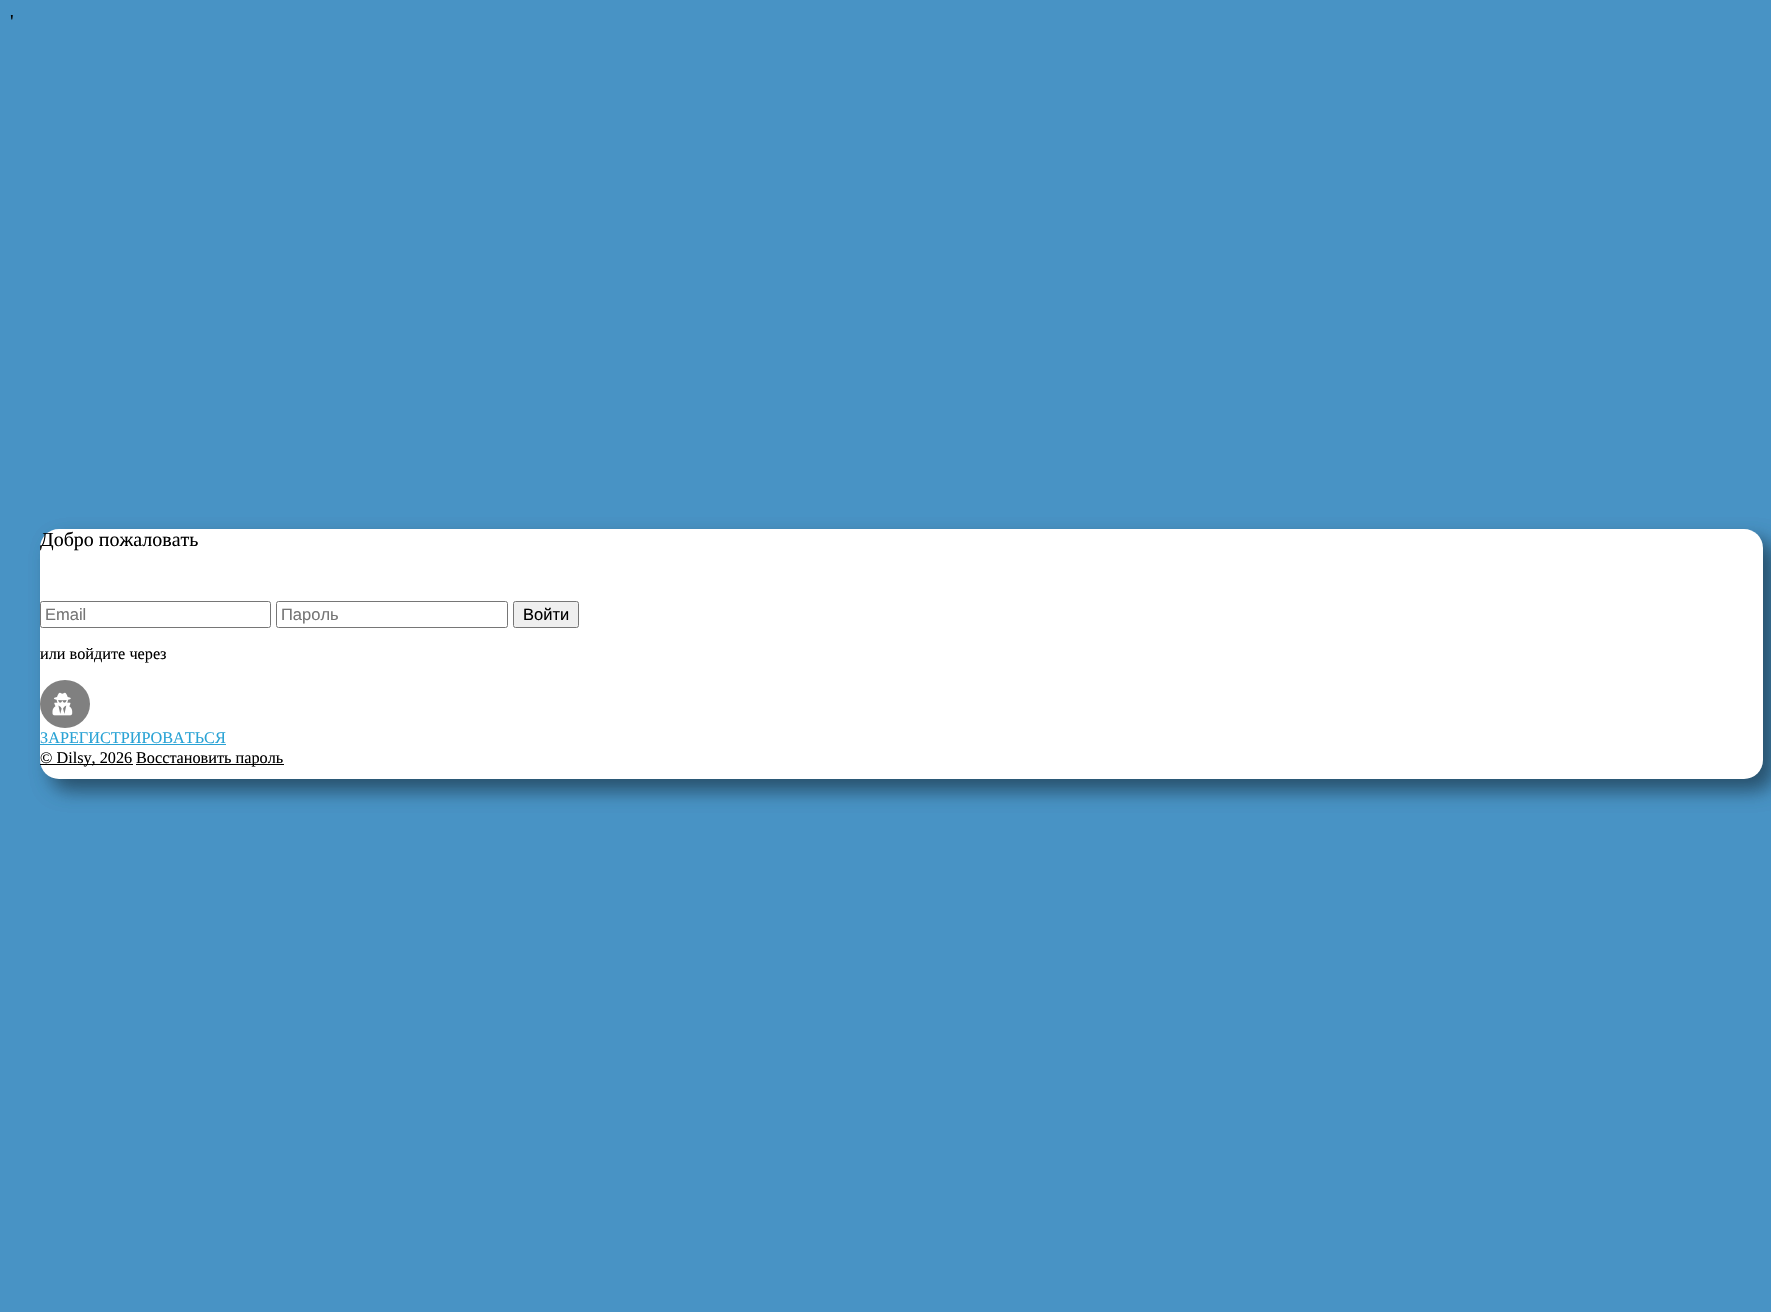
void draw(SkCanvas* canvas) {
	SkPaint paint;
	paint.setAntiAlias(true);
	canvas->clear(0xff4893c5);
	SkFont f1(fontMgr->matchFamilyStyle("Liberation Serif", SkFontStyle::Normal()), 20);
	f1.setSubpixel(true);
	paint.setColor(0xff000000);
	canvas->drawString("'", 10, 28, f1, paint);
	paint.setColor(0x42000000);
	paint.setMaskFilter(SkMaskFilter::MakeBlur(kNormal_SkBlurStyle, 9.5));
	canvas->drawRoundRect(SkRect::MakeXYWH(51, 540, 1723, 250), 19, 19, paint);
	paint.setMaskFilter(nullptr);
	paint.setMaskFilter(SkMaskFilter::MakeBlur(kNormal_SkBlurStyle, 9.5));
	canvas->drawRoundRect(SkRect::MakeXYWH(51, 540, 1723, 250), 19, 19, paint);
	paint.setMaskFilter(nullptr);
	paint.setColor(0xffffffff);
	canvas->drawRoundRect(SkRect::MakeXYWH(40, 529, 1723, 250), 19, 19, paint);
	paint.setColor(0xff000000);
	canvas->drawString("Добро пожаловать", 40, 546, f1, paint);
	paint.setStroke(true);
	paint.setStrokeWidth(1);
	paint.setColor(0xff767676);
	canvas->drawRoundRect(SkRect::MakeXYWH(40.5, 601.5, 230, 26), 2, 2, paint);
	SkFont f2(fontMgr->matchFamilyStyle("Liberation Sans", SkFontStyle::Normal()), 16.5);
	f2.setSubpixel(true);
	paint.setStroke(false);
	paint.setColor(0xff757575);
	canvas->drawString("Email", 45, 620, f2, paint);
	paint.setStroke(true);
	paint.setColor(0xff767676);
	canvas->drawRoundRect(SkRect::MakeXYWH(276.5, 601.5, 231, 26), 2, 2, paint);
	paint.setStroke(false);
	paint.setColor(0xff757575);
	canvas->drawString("Пароль", 281, 620, f2, paint);
	paint.setColor(0xffefefef);
	canvas->drawRoundRect(SkRect::MakeXYWH(513.5, 601.5, 65, 26), 2, 2, paint);
	paint.setStroke(true);
	paint.setColor(0xff767676);
	canvas->drawRoundRect(SkRect::MakeXYWH(513.5, 601.5, 65, 26), 2, 2, paint);
	paint.setStroke(false);
	paint.setColor(0xff000000);
	canvas->drawString("Войти", 523, 620, f2, paint);
	SkFont f3(fontMgr->matchFamilyStyle("Liberation Serif", SkFontStyle::Normal()), 16.25);
	f3.setSubpixel(true);
	canvas->drawString("или войдите через", 40, 659, f3, paint);
	paint.setColor(0xff808080);
	canvas->drawOval(SkRect::MakeXYWH(40, 680, 50, 48), paint);
	canvas->drawImageRect(SkImages::DeferredFromEncodedData(SkData::MakeFromFileName("img1.png")), SkRect::MakeXYWH(52, 692, 21, 24), SkSamplingOptions());
	paint.setColor(0xff2aa3d5);
	canvas->drawString("ЗАРЕГИСТРИРОВАТЬСЯ", 40, 743, f3, paint);
	canvas->drawRect(SkRect::MakeXYWH(40, 744, 186, 1), paint);
	paint.setColor(0xff000000);
	canvas->drawRect(SkRect::MakeXYWH(40, 764, 93, 1), paint);
	canvas->drawString("© Dilsy, 2026", 40, 763, f3, paint);
	canvas->drawRect(SkRect::MakeXYWH(136, 764, 148, 1), paint);
	canvas->drawString("Восстановить пароль", 136, 763, f3, paint);
}
